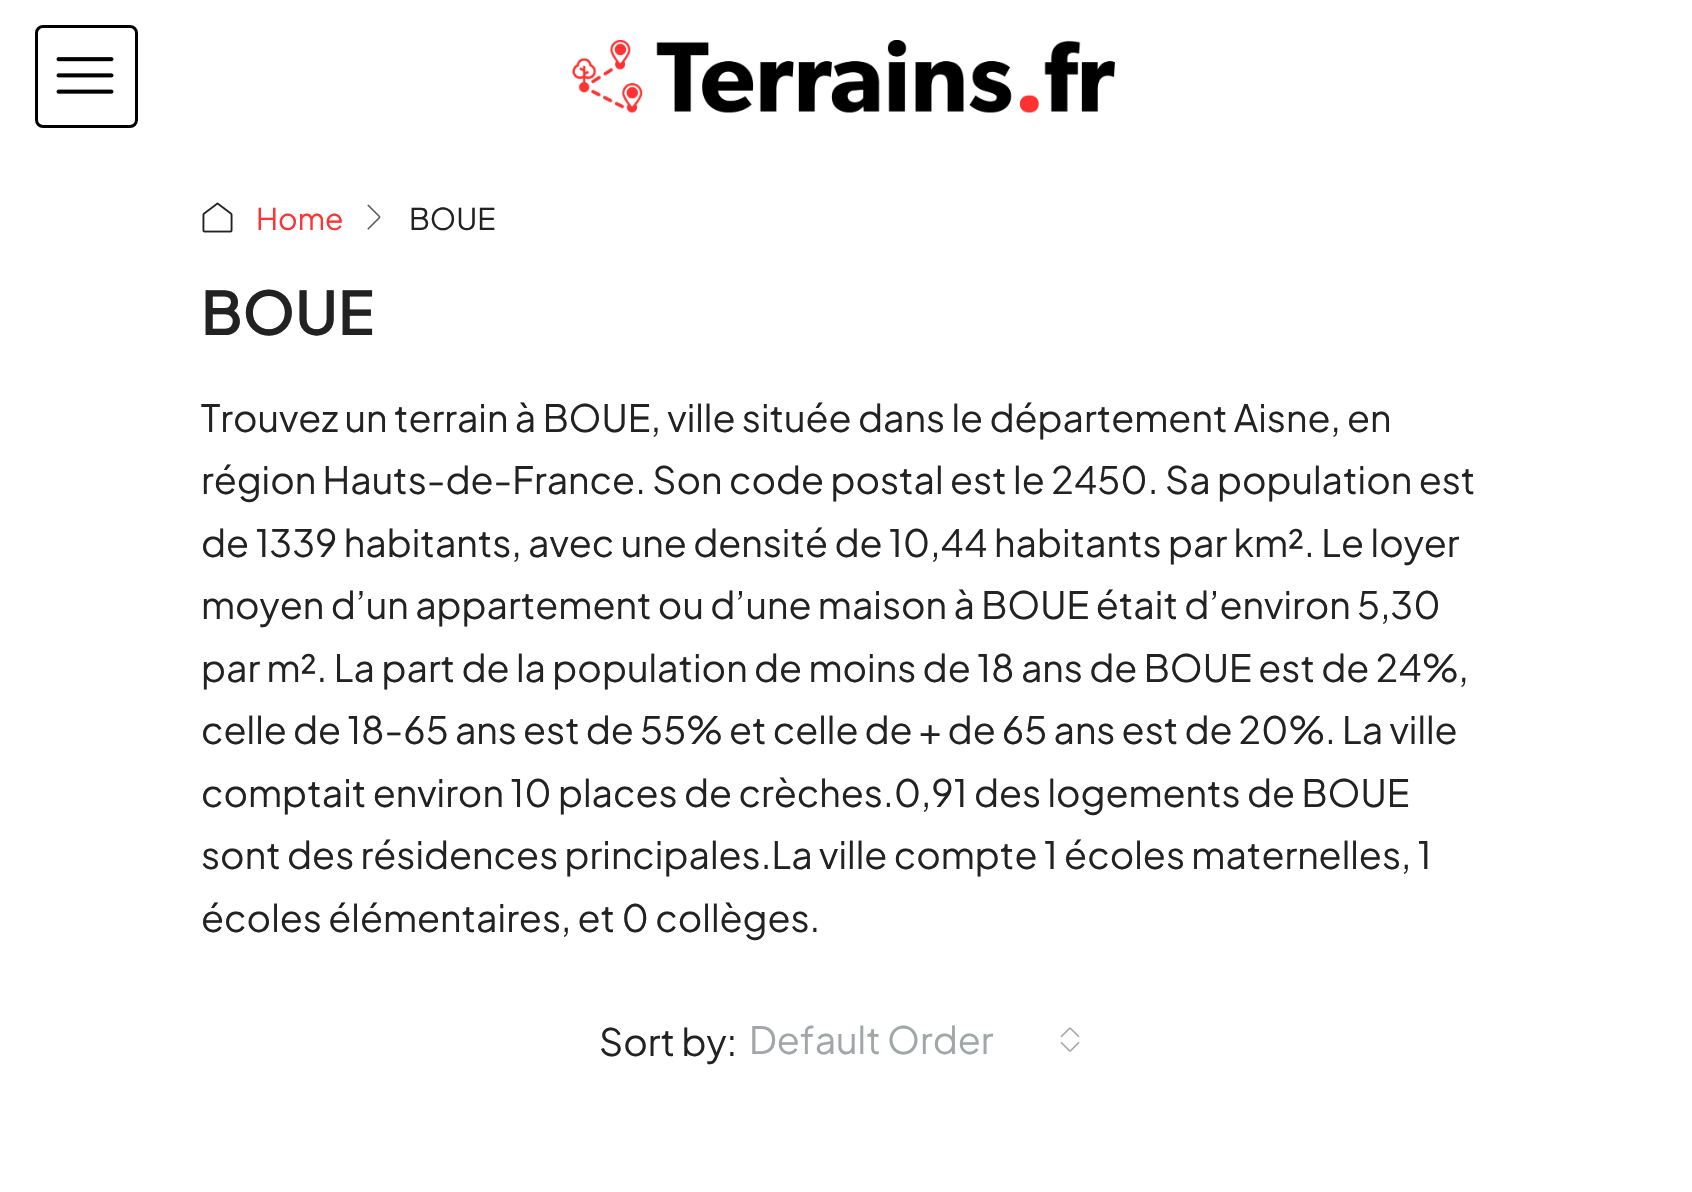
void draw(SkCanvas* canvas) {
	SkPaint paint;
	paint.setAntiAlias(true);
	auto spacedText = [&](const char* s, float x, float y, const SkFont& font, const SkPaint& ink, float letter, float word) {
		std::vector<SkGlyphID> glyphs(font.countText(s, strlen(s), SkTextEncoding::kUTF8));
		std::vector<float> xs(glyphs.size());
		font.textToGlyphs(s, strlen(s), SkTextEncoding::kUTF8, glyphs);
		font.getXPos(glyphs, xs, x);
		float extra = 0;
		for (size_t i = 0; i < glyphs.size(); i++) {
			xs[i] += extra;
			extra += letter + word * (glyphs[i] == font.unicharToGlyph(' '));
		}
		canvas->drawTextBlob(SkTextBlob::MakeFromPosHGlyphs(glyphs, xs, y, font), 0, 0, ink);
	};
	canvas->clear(0xffffffff);
	paint.setStroke(true);
	paint.setStrokeWidth(3);
	paint.setColor(0xff000000);
	canvas->drawRoundRect(SkRect::MakeXYWH(36.5, 26.5, 100, 100), 6.5, 6.5, paint);
	canvas->drawImageRect(SkImages::DeferredFromEncodedData(SkData::MakeFromFileName("img1.png")), SkRect::MakeXYWH(56, 57, 58, 37), SkSamplingOptions());
	canvas->drawImageRect(SkImages::DeferredFromEncodedData(SkData::MakeFromFileName("img2.png")), SkRect::MakeXYWH(572, 40, 543, 73), SkSamplingOptions());
	canvas->drawImageRect(SkImages::DeferredFromEncodedData(SkData::MakeFromFileName("img3.png")), SkRect::MakeXYWH(202, 202, 31, 31), SkSamplingOptions());
	SkFont f1(fontMgr->matchFamilyStyle("Plus Jakarta Sans", SkFontStyle::Normal()), 30);
	f1.setSubpixel(true);
	paint.setStroke(false);
	paint.setColor(0xffff3333);
	canvas->drawString("Home", 256, 230, f1, paint);
	canvas->drawImageRect(SkImages::DeferredFromEncodedData(SkData::MakeFromFileName("img4.png")), SkRect::MakeXYWH(367, 204, 14, 26), SkSamplingOptions());
	paint.setColor(0xff222222);
	canvas->drawString("BOUE", 409, 230, f1, paint);
	SkFont f2(fontMgr->matchFamilyStyle("Plus Jakarta Sans", SkFontStyle(600, SkFontStyle::kNormal_Width, SkFontStyle::kUpright_Slant)), 60);
	f2.setSubpixel(true);
	canvas->drawString("BOUE", 201, 335, f2, paint);
	SkFont f3(fontMgr->matchFamilyStyle("Plus Jakarta Sans", SkFontStyle::Normal()), 37.5);
	f3.setSubpixel(true);
	canvas->drawString("Trouvez un terrain à BOUE, ville située dans le département Aisne, en", 201, 432, f3, paint);
	canvas->drawString("région Hauts-de-France. Son code postal est le 2450. Sa population est", 201, 494, f3, paint);
	canvas->drawString("de 1339 habitants, avec une densité de 10,44 habitants par km². Le loyer", 201, 557, f3, paint);
	canvas->drawString("moyen d’un appartement ou d’une maison à BOUE était d’environ 5,30", 201, 619, f3, paint);
	canvas->drawString("par m². La part de la population de moins de 18 ans de BOUE est de 24%,", 201, 682, f3, paint);
	spacedText("celle de 18-65 ans est de 55% et celle de + de 65 ans est de 20%. La ville", 201, 744, f3, paint, 0, -0.25);
	canvas->drawString("comptait environ 10 places de crèches.0,91 des logements de BOUE", 201, 807, f3, paint);
	canvas->drawString("sont des résidences principales.La ville compte 1 écoles maternelles, 1", 201, 869, f3, paint);
	canvas->drawString("écoles élémentaires, et 0 collèges.", 201, 932, f3, paint);
	canvas->drawString("Sort by:", 599, 1056, f3, paint);
	paint.setColor(0xffa1a7a8);
	canvas->drawString("Default Order", 749, 1054, f3, paint);
	canvas->drawImageRect(SkImages::DeferredFromEncodedData(SkData::MakeFromFileName("img5.png")), SkRect::MakeXYWH(1060, 1027, 20, 25), SkSamplingOptions());
}
